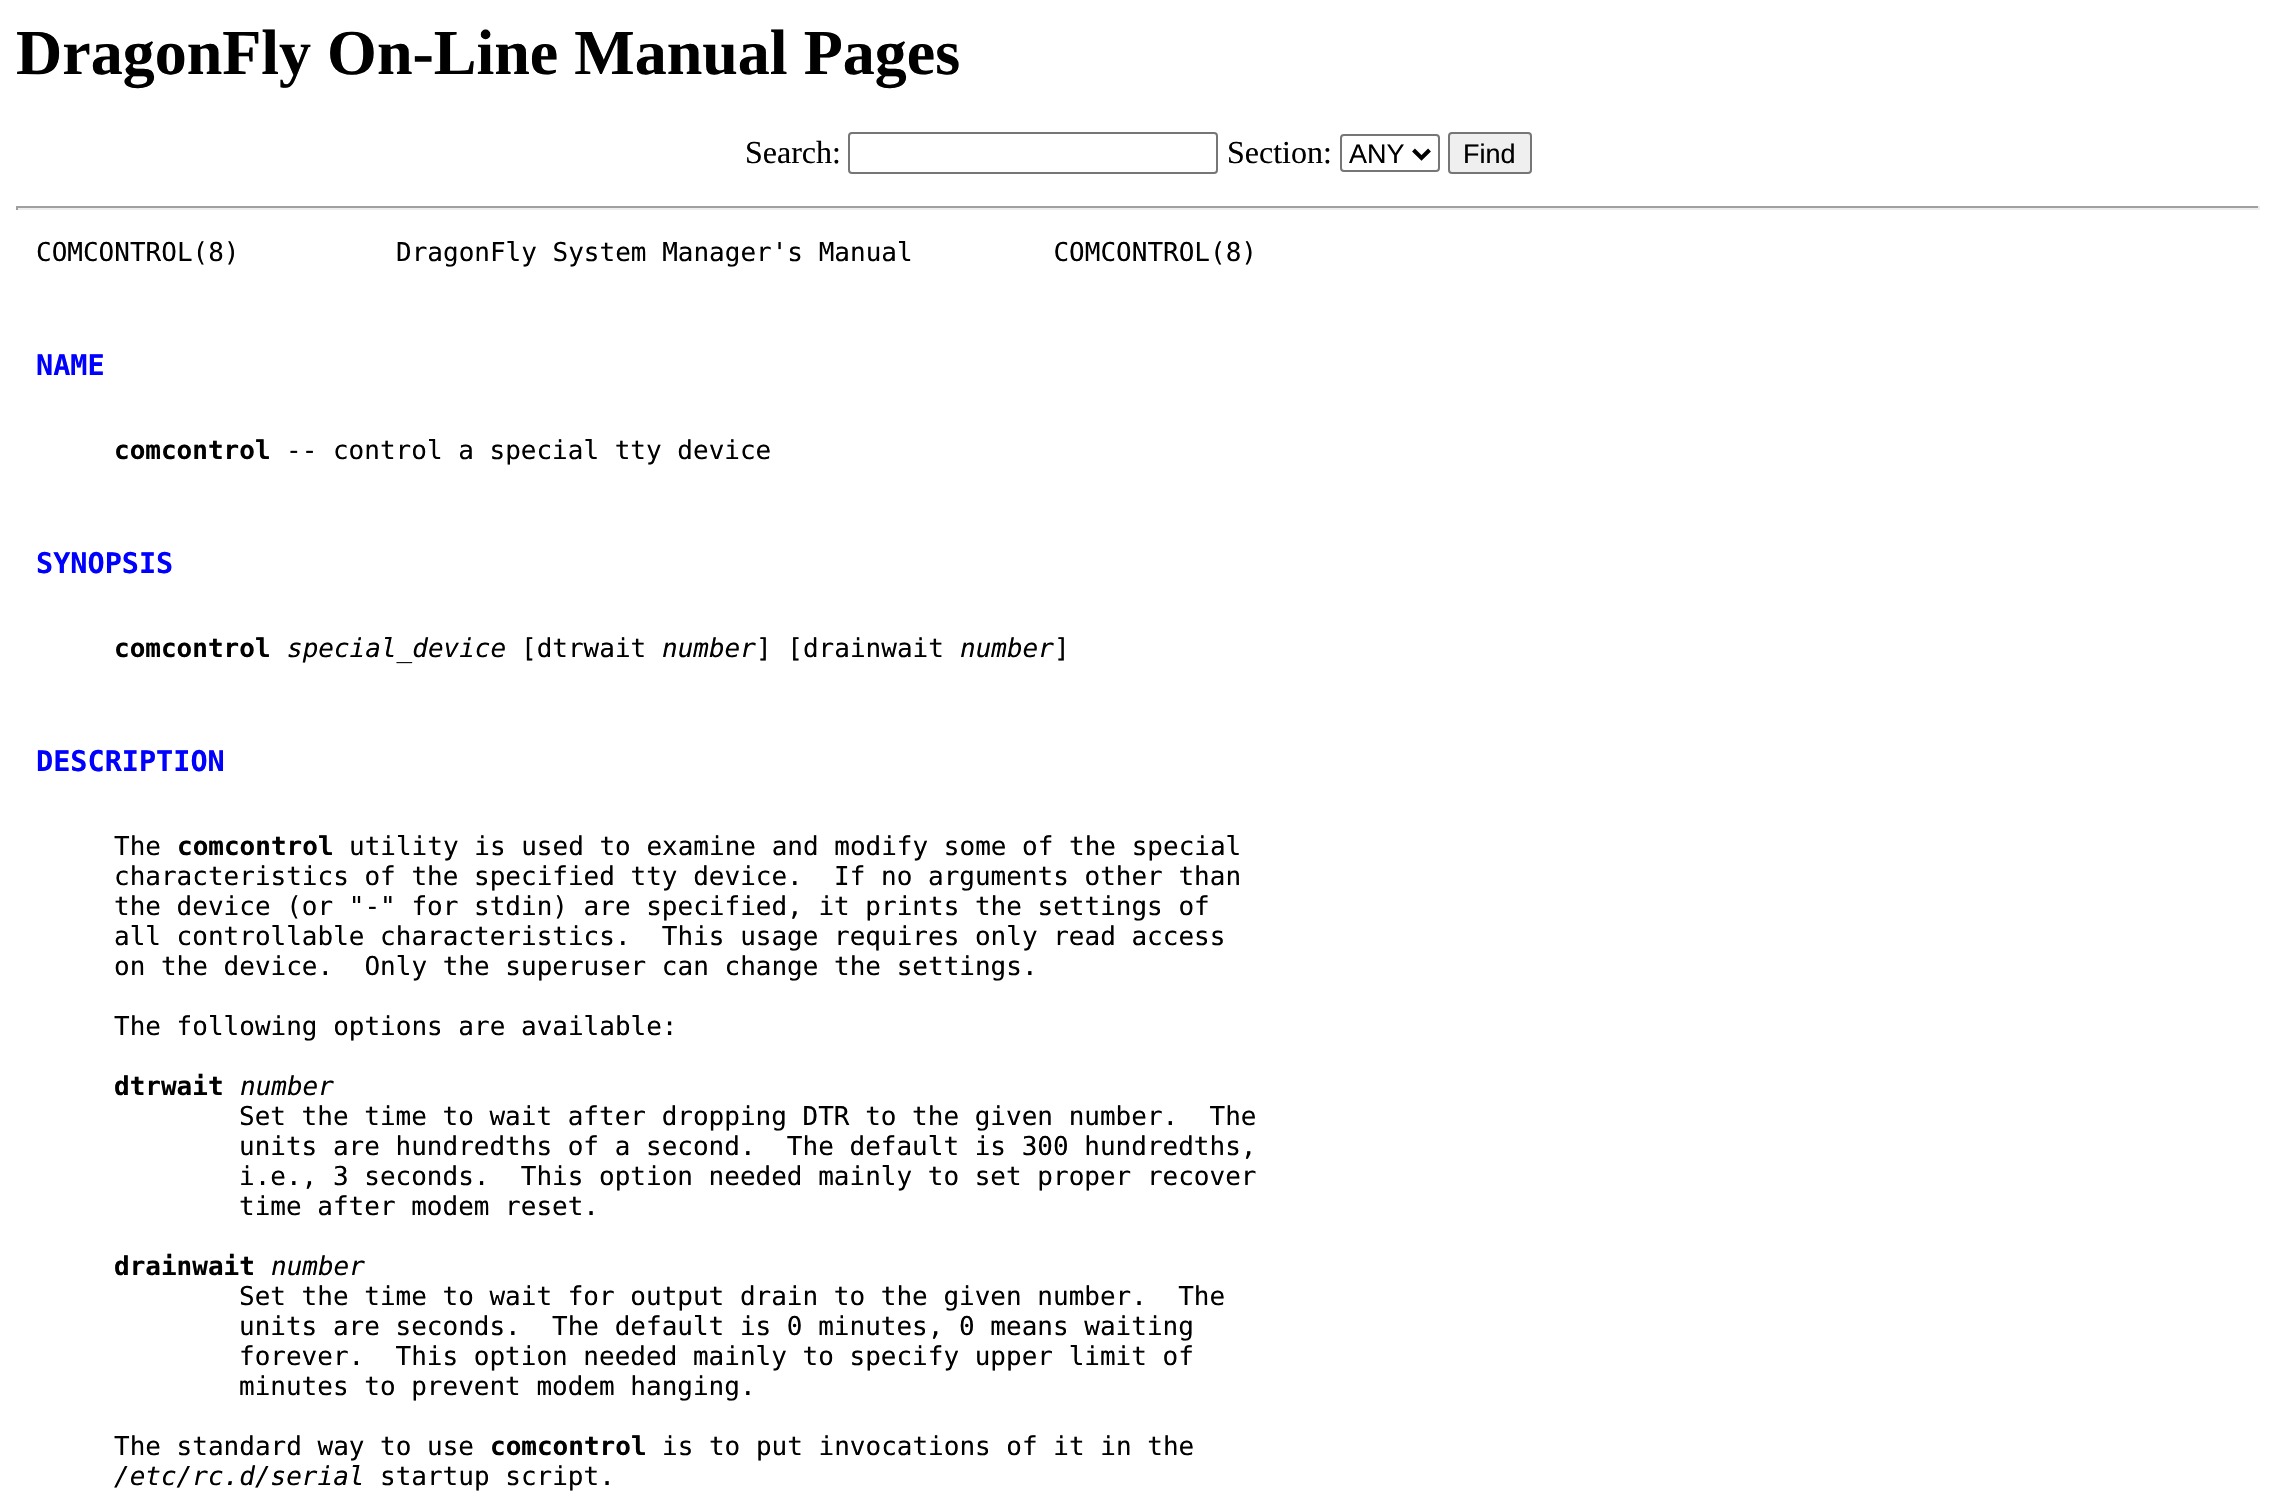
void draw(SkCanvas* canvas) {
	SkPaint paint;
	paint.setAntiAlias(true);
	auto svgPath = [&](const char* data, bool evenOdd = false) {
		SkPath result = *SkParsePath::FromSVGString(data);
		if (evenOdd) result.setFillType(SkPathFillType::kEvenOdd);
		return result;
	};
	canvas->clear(0xffffffff);
	SkFont f1(fontMgr->matchFamilyStyle("Liberation Serif", SkFontStyle::Bold()), 64);
	f1.setSubpixel(true);
	paint.setColor(0xff000000);
	canvas->drawString("DragonFly On-Line Manual Pages", 16, 74, f1, paint);
	SkFont f2(fontMgr->matchFamilyStyle("Liberation Serif", SkFontStyle::Normal()), 32);
	f2.setSubpixel(true);
	canvas->drawString("Search:", 745, 163, f2, paint);
	paint.setStroke(true);
	paint.setStrokeWidth(2);
	paint.setColor(0xff767676);
	canvas->drawRoundRect(SkRect::MakeXYWH(849, 133, 368, 40), 3, 3, paint);
	paint.setStroke(false);
	paint.setColor(0xff000000);
	canvas->drawString("Section:", 1227, 163, f2, paint);
	paint.setStroke(true);
	paint.setColor(0xff767676);
	canvas->drawRoundRect(SkRect::MakeXYWH(1341, 135, 98, 36), 3, 3, paint);
	paint.setStrokeWidth(4);
	paint.setColor(0xff000000);
	canvas->drawPath(svgPath("M1413.5 150L1421.5 158L1429.5 150"), paint);
	SkFont f3(fontMgr->matchFamilyStyle("Liberation Sans", SkFontStyle::Normal()), 27);
	f3.setSubpixel(true);
	paint.setStroke(false);
	canvas->drawString("ANY", 1349, 163, f3, paint);
	paint.setColor(0xffefefef);
	canvas->drawRoundRect(SkRect::MakeXYWH(1449, 133, 82, 40), 3, 3, paint);
	paint.setStroke(true);
	paint.setStrokeWidth(2);
	paint.setColor(0xff767676);
	canvas->drawRoundRect(SkRect::MakeXYWH(1449, 133, 82, 40), 3, 3, paint);
	paint.setStroke(false);
	paint.setColor(0xff000000);
	canvas->drawString("Find", 1463, 163, f3, paint);
	paint.setColor(0xff9f9f9f);
	canvas->drawRect(SkRect::MakeXYWH(16, 206, 2244, 2), paint);
	paint.setColor(0xffeeeeee);
	canvas->drawRect(SkRect::MakeXYWH(2258, 206, 2, 4), paint);
	canvas->drawRect(SkRect::MakeXYWH(16, 208, 2244, 2), paint);
	paint.setColor(0xff9f9f9f);
	canvas->drawRect(SkRect::MakeXYWH(16, 206, 2, 4), paint);
	SkFont f4(fontMgr->matchFamilyStyle("DejaVu Sans Mono", SkFontStyle::Normal()), 26);
	f4.setSubpixel(true);
	paint.setColor(0xff000000);
	canvas->drawString("COMCONTROL(8)          DragonFly System Manager's Manual         COMCONTROL(8)", 36, 261, f4, paint);
	SkFont f5(fontMgr->matchFamilyStyle("DejaVu Sans Mono", SkFontStyle::Bold()), 28.5);
	f5.setSubpixel(true);
	paint.setColor(0xff0000ff);
	canvas->drawString("NAME", 36, 375, f5, paint);
	SkFont f6(fontMgr->matchFamilyStyle("DejaVu Sans Mono", SkFontStyle::Bold()), 26);
	f6.setSubpixel(true);
	paint.setColor(0xff000000);
	canvas->drawString("comcontrol", 114, 459, f6, paint);
	canvas->drawString("-- control a special tty device", 286, 459, f4, paint);
	paint.setColor(0xff0000ff);
	canvas->drawString("SYNOPSIS", 36, 573, f5, paint);
	paint.setColor(0xff000000);
	canvas->drawString("comcontrol", 114, 657, f6, paint);
	SkFont f7(fontMgr->matchFamilyStyle("DejaVu Sans Mono", SkFontStyle::Italic()), 26);
	f7.setSubpixel(true);
	canvas->drawString("special_device", 287, 657, f7, paint);
	canvas->drawString("[dtrwait", 521, 657, f4, paint);
	canvas->drawString("number", 662, 657, f7, paint);
	canvas->drawString("] [drainwait", 756, 657, f4, paint);
	canvas->drawString("number", 960, 657, f7, paint);
	canvas->drawString("]", 1054, 657, f4, paint);
	paint.setColor(0xff0000ff);
	canvas->drawString("DESCRIPTION", 36, 771, f5, paint);
	paint.setColor(0xff000000);
	canvas->drawString("The", 114, 855, f4, paint);
	canvas->drawString("comcontrol", 177, 855, f6, paint);
	canvas->drawString("utility is used to examine and modify some of the special", 349, 855, f4, paint);
	canvas->drawString("characteristics of the specified tty device.  If no arguments other than", 114, 885, f4, paint);
	canvas->drawString("the device (or \"-\" for stdin) are specified, it prints the settings of", 114, 915, f4, paint);
	canvas->drawString("all controllable characteristics.  This usage requires only read access", 114, 945, f4, paint);
	canvas->drawString("on the device.  Only the superuser can change the settings.", 114, 975, f4, paint);
	canvas->drawString("The following options are available:", 114, 1035, f4, paint);
	canvas->drawString("dtrwait", 114, 1095, f6, paint);
	canvas->drawString("number", 240, 1095, f7, paint);
	canvas->drawString("Set the time to wait after dropping DTR to the given number.  The", 239, 1125, f4, paint);
	canvas->drawString("units are hundredths of a second.  The default is 300 hundredths,", 239, 1155, f4, paint);
	canvas->drawString("i.e., 3 seconds.  This option needed mainly to set proper recover", 239, 1185, f4, paint);
	canvas->drawString("time after modem reset.", 239, 1215, f4, paint);
	canvas->drawString("drainwait", 114, 1275, f6, paint);
	canvas->drawString("number", 271, 1275, f7, paint);
	canvas->drawString("Set the time to wait for output drain to the given number.  The", 239, 1305, f4, paint);
	canvas->drawString("units are seconds.  The default is 0 minutes, 0 means waiting", 239, 1335, f4, paint);
	canvas->drawString("forever.  This option needed mainly to specify upper limit of", 239, 1365, f4, paint);
	canvas->drawString("minutes to prevent modem hanging.", 239, 1395, f4, paint);
	canvas->drawString("The standard way to use", 114, 1455, f4, paint);
	canvas->drawString("comcontrol", 490, 1455, f6, paint);
	canvas->drawString("is to put invocations of it in the", 662, 1455, f4, paint);
	canvas->drawString("/etc/rc.d/serial", 114, 1485, f7, paint);
	canvas->drawString("startup script.", 380, 1485, f4, paint);
}
